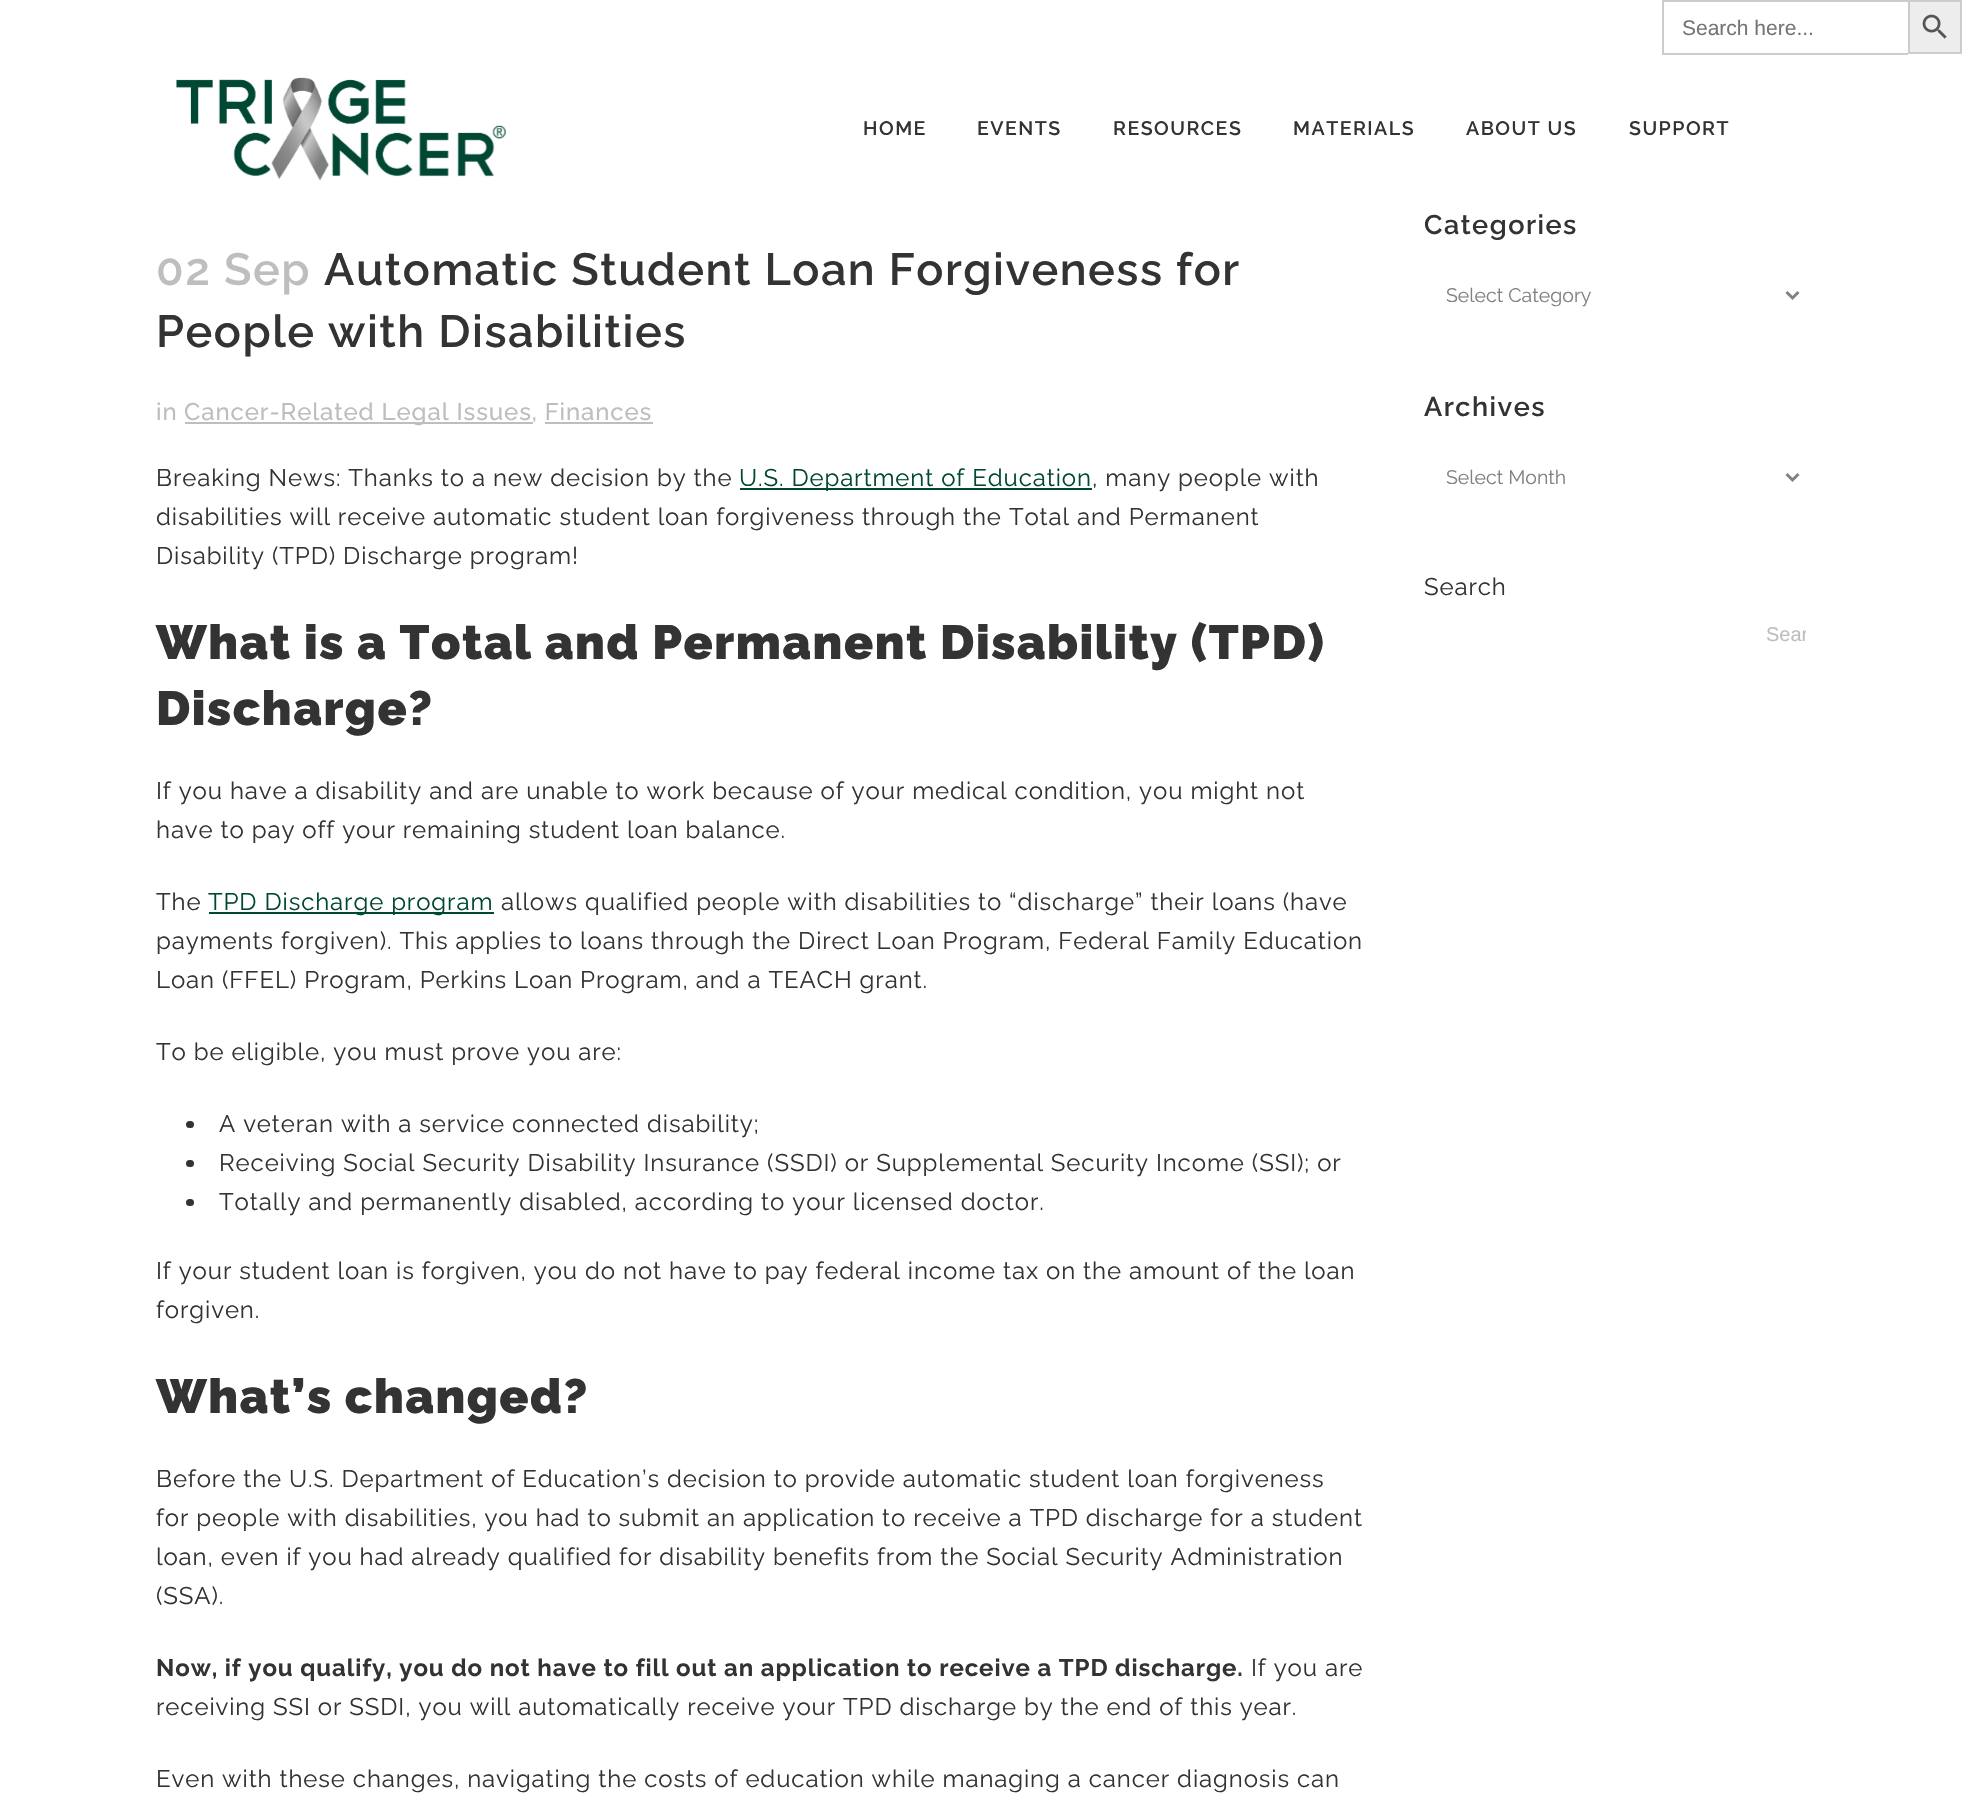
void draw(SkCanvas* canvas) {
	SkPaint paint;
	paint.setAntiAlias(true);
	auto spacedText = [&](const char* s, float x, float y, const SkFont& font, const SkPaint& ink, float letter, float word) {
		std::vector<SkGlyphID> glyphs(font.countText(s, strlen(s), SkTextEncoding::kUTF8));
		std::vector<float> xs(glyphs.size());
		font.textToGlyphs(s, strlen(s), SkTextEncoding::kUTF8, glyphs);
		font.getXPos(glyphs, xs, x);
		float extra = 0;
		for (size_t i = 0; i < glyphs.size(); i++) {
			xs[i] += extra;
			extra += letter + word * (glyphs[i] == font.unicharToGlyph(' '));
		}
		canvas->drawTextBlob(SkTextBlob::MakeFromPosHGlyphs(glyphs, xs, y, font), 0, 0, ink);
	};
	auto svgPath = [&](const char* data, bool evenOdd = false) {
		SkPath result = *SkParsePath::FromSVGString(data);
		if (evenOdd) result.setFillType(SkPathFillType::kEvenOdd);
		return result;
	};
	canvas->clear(0xffffffff);
	paint.setColor(0xffcccccc);
	canvas->drawRect(SkRect::MakeXYWH(1662, 0, 246, 2), paint);
	canvas->drawRect(SkRect::MakeXYWH(1662, 53, 246, 2), paint);
	canvas->drawRect(SkRect::MakeXYWH(1662, 0, 2, 54), paint);
	SkFont f1(fontMgr->matchFamilyStyle("Liberation Sans", SkFontStyle::Normal()), 21);
	f1.setSubpixel(true);
	paint.setColor(0xff757575);
	canvas->drawString("Search here...", 1682, 35, f1, paint);
	paint.setColor(0xffededed);
	canvas->drawRect(SkRect::MakeXYWH(1909, 1, 52, 52), paint);
	paint.setStroke(true);
	paint.setStrokeWidth(2);
	paint.setColor(0xffcccccc);
	canvas->drawRect(SkRect::MakeXYWH(1909, 1, 52, 52), paint);
	canvas->drawImageRect(SkImages::DeferredFromEncodedData(SkData::MakeFromFileName("img1.png")), SkRect::MakeXYWH(1922, 14, 25, 25), SkSamplingOptions());
	canvas->drawImageRect(SkImages::DeferredFromEncodedData(SkData::MakeFromFileName("img2.png")), SkRect::MakeXYWH(176, 77, 331, 104), SkSamplingOptions());
	SkFont f2(fontMgr->matchFamilyStyle("Raleway", SkFontStyle(600, SkFontStyle::kNormal_Width, SkFontStyle::kUpright_Slant)), 19.5);
	f2.setSubpixel(true);
	paint.setStroke(false);
	paint.setColor(0xff333333);
	spacedText("HOME", 863, 135, f2, paint, 1.5, 0);
	spacedText("EVENTS", 977, 135, f2, paint, 1.5, 0);
	spacedText("RESOURCES", 1113, 135, f2, paint, 1.5, 0);
	spacedText("MATERIALS", 1293, 135, f2, paint, 1.5, 0);
	spacedText("ABOUT US", 1466, 135, f2, paint, 1.5, 0);
	spacedText("SUPPORT", 1629, 135, f2, paint, 1.5, 0);
	SkFont f3(fontMgr->matchFamilyStyle("Raleway", SkFontStyle(600, SkFontStyle::kNormal_Width, SkFontStyle::kUpright_Slant)), 45);
	f3.setSubpixel(true);
	paint.setColor(0xffbebebe);
	spacedText("02 Sep", 156, 285, f3, paint, 1.5, 0);
	paint.setColor(0xff333333);
	spacedText("Automatic Student Loan Forgiveness for", 324, 285, f3, paint, 1.5, 0);
	spacedText("People with Disabilities", 156, 347, f3, paint, 1.5, 0);
	SkFont f4(fontMgr->matchFamilyStyle("Raleway", SkFontStyle(500, SkFontStyle::kNormal_Width, SkFontStyle::kUpright_Slant)), 24);
	f4.setSubpixel(true);
	paint.setColor(0xffbebebe);
	spacedText("in", 156, 420, f4, paint, 0.9, 0);
	canvas->drawRect(SkRect::MakeXYWH(185, 422, 348, 2), paint);
	spacedText("Cancer-Related Legal Issues, Finances", 184, 420, f4, paint, 0.9, 0);
	canvas->drawRect(SkRect::MakeXYWH(545, 422, 108, 2), paint);
	SkFont f5(fontMgr->matchFamilyStyle("Raleway", SkFontStyle::Normal()), 24);
	f5.setSubpixel(true);
	paint.setColor(0xff333333);
	spacedText("Breaking News: Thanks to a new decision by the", 156, 486, f5, paint, 0.9, 0);
	paint.setColor(0xff004834);
	canvas->drawRect(SkRect::MakeXYWH(740, 488, 352, 2), paint);
	spacedText("U.S. Department of Education", 739, 486, f5, paint, 0.9, 0);
	paint.setColor(0xff333333);
	spacedText(", many people with", 1092, 486, f5, paint, 0.9, 0);
	spacedText("disabilities will receive automatic student loan forgiveness through the Total and Permanent", 156, 525, f5, paint, 0.9, 0);
	spacedText("Disability (TPD) Discharge program!", 156, 564, f5, paint, 0.9, 0);
	SkFont f6(fontMgr->matchFamilyStyle("Raleway", SkFontStyle(900, SkFontStyle::kNormal_Width, SkFontStyle::kUpright_Slant)), 48);
	f6.setSubpixel(true);
	spacedText("What is a Total and Permanent Disability (TPD)", 156, 659, f6, paint, 1.5, 0);
	spacedText("Discharge?", 156, 725, f6, paint, 1.5, 0);
	spacedText("If you have a disability and are unable to work because of your medical condition, you might not", 156, 799, f5, paint, 0.9, 0);
	spacedText("have to pay off your remaining student loan balance.", 156, 838, f5, paint, 0.9, 0);
	spacedText("The", 156, 910, f5, paint, 0.9, 0);
	paint.setColor(0xff004834);
	canvas->drawRect(SkRect::MakeXYWH(209, 912, 285, 2), paint);
	spacedText("TPD Discharge program", 208, 910, f5, paint, 0.9, 0);
	paint.setColor(0xff333333);
	spacedText("allows qualified people with disabilities to “discharge” their loans (have", 501, 910, f5, paint, 0.9, 0);
	spacedText("payments forgiven). This applies to loans through the Direct Loan Program, Federal Family Education", 156, 949, f5, paint, 0.9, 0);
	spacedText("Loan (FFEL) Program, Perkins Loan Program, and a TEACH grant.", 156, 988, f5, paint, 0.9, 0);
	spacedText("To be eligible, you must prove you are:", 156, 1060, f5, paint, 0.9, 0);
	canvas->drawRoundRect(SkRect::MakeXYWH(186, 1121, 8, 7), 3.5, 3.5, paint);
	spacedText("A veteran with a service connected disability;", 219, 1132, f5, paint, 0.9, 0);
	canvas->drawRoundRect(SkRect::MakeXYWH(186, 1160, 8, 7), 3.5, 3.5, paint);
	spacedText("Receiving Social Security Disability Insurance (SSDI) or Supplemental Security Income (SSI); or", 219, 1171, f5, paint, 0.9, 0);
	canvas->drawRoundRect(SkRect::MakeXYWH(186, 1199, 8, 7), 3.5, 3.5, paint);
	spacedText("Totally and permanently disabled, according to your licensed doctor.", 219, 1210, f5, paint, 0.9, 0);
	spacedText("If your student loan is forgiven, you do not have to pay federal income tax on the amount of the loan", 156, 1279, f5, paint, 0.9, 0);
	spacedText("forgiven.", 156, 1318, f5, paint, 0.9, 0);
	spacedText("What’s changed?", 156, 1413, f6, paint, 1.5, 0);
	spacedText("Before the U.S. Department of Education’s decision to provide automatic student loan forgiveness", 156, 1487, f5, paint, 0.9, 0);
	spacedText("for people with disabilities, you had to submit an application to receive a TPD discharge for a student", 156, 1526, f5, paint, 0.9, 0);
	spacedText("loan, even if you had already qualified for disability benefits from the Social Security Administration", 156, 1565, f5, paint, 0.9, 0);
	spacedText("(SSA).", 156, 1604, f5, paint, 0.9, 0);
	SkFont f7(fontMgr->matchFamilyStyle("Raleway", SkFontStyle::Bold()), 24);
	f7.setSubpixel(true);
	spacedText("Now, if you qualify, you do not have to fill out an application to receive a TPD discharge.", 156, 1676, f7, paint, 0.9, 0);
	spacedText("If you are", 1251, 1676, f5, paint, 0.9, 0);
	spacedText("receiving SSI or SSDI, you will automatically receive your TPD discharge by the end of this year.", 156, 1715, f5, paint, 0.9, 0);
	spacedText("Even with these changes, navigating the costs of education while managing a cancer diagnosis can", 156, 1787, f5, paint, 0.9, 0);
	SkFont f8(fontMgr->matchFamilyStyle("Raleway", SkFontStyle(600, SkFontStyle::kNormal_Width, SkFontStyle::kUpright_Slant)), 27);
	f8.setSubpixel(true);
	spacedText("Categories", 1424, 234, f8, paint, 1.5, 0);
	paint.setStroke(true);
	paint.setStrokeWidth(3);
	paint.setColor(0xff818181);
	canvas->drawPath(svgPath("M1786.5 292L1792.5 298L1798.5 292"), paint);
	SkFont f9(fontMgr->matchFamilyStyle("Raleway", SkFontStyle::Normal()), 19.5);
	f9.setSubpixel(true);
	paint.setStroke(false);
	canvas->drawString("Select Category", 1446, 302, f9, paint);
	paint.setColor(0xff333333);
	spacedText("Archives", 1424, 416, f8, paint, 1.5, 0);
	paint.setStroke(true);
	paint.setColor(0xff818181);
	canvas->drawPath(svgPath("M1786.5 474L1792.5 480L1798.5 474"), paint);
	paint.setStroke(false);
	canvas->drawString("Select Month", 1446, 484, f9, paint);
	paint.setColor(0xff333333);
	spacedText("Search", 1424, 595, f5, paint, 0.9, 0);
	canvas->save();
	canvas->clipRect(SkRect::MakeXYWH(1751, 608, 55, 55));
	SkFont f10(fontMgr->matchFamilyStyle("Liberation Sans", SkFontStyle::Normal()), 20);
	f10.setSubpixel(true);
	paint.setColor(0xffbebebe);
	canvas->drawString("Sear", 1766, 641, f10, paint);
	canvas->restore();
}
